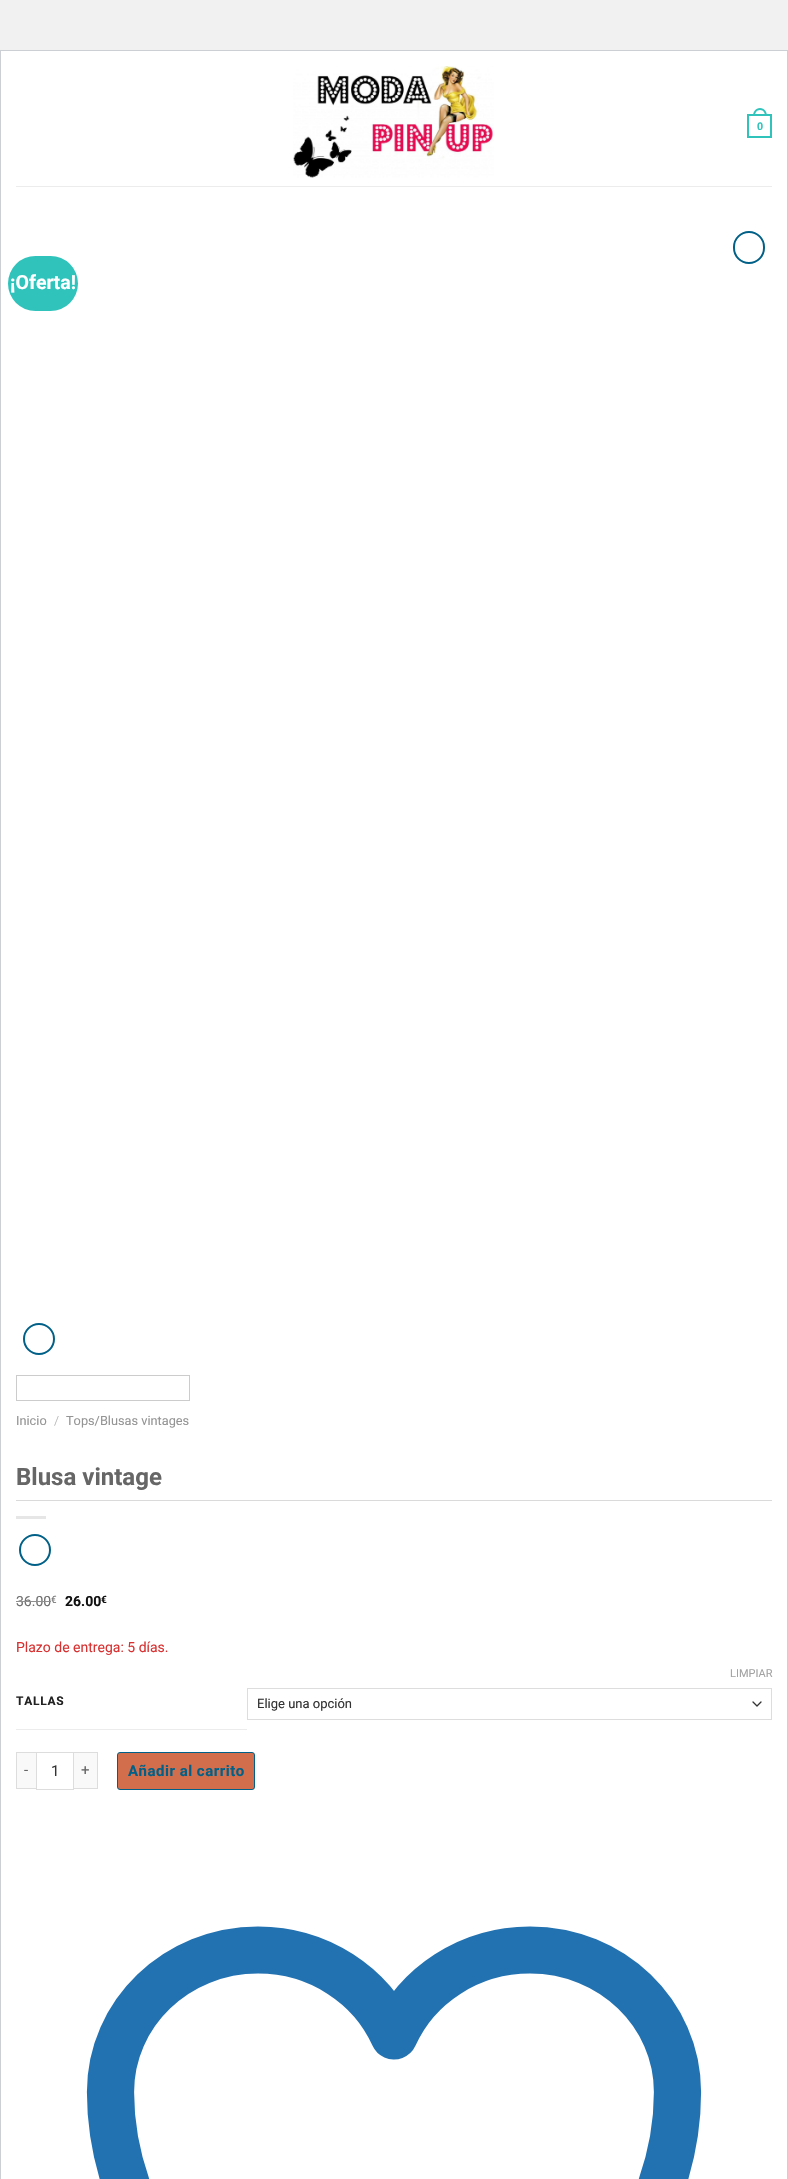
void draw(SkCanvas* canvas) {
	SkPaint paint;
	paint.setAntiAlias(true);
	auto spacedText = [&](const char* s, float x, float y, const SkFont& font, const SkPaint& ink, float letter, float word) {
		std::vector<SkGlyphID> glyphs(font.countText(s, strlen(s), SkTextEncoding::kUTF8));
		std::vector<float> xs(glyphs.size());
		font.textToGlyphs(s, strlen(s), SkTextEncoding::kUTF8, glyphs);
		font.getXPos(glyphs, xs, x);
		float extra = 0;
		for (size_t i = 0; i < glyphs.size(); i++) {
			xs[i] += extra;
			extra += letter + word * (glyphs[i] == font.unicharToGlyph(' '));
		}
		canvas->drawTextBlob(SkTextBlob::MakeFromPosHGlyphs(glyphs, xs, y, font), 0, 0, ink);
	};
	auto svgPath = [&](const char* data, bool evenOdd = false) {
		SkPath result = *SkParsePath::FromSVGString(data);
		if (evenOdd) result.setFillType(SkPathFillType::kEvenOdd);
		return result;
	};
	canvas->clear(0xfff1f1f1);
	paint.setColor(0xffffffff);
	canvas->drawRect(SkRect::MakeXYWH(0.5, 50.5, 787, 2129), paint);
	paint.setStroke(true);
	paint.setStrokeWidth(1);
	paint.setColor(0xffccd0d4);
	canvas->drawRect(SkRect::MakeXYWH(0.5, 50.5, 787, 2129), paint);
	canvas->drawImageRect(SkImages::DeferredFromEncodedData(SkData::MakeFromFileName("img1.png")), SkRect::MakeXYWH(293, 66, 201, 112), SkSamplingOptions());
	paint.setStrokeWidth(2);
	paint.setColor(0xff30c3bc);
	canvas->drawRect(SkRect::MakeXYWH(748, 115, 23, 22), paint);
	paint.setStroke(false);
	canvas->drawPath(svgPath("M760 108C764.5 108 767 112 767 116H753C753 112 755.5 108 760 108ZM760 110C763.5 110 765 113 765 116H755C755 113 756.5 110 760 110Z", true), paint);
	SkFont f1(fontMgr->matchFamilyStyle("Liberation Sans", SkFontStyle::Bold()), 11);
	f1.setSubpixel(true);
	canvas->drawString("0", 757, 130, f1, paint);
	paint.setColor(0xffececec);
	canvas->drawRect(SkRect::MakeXYWH(16, 186, 756, 1), paint);
	paint.setStroke(true);
	paint.setColor(0xff016087);
	canvas->drawRoundRect(SkRect::MakeXYWH(734, 232, 30, 31), 15, 15, paint);
	paint.setStroke(false);
	paint.setColor(0xff30c3bc);
	canvas->drawRoundRect(SkRect::MakeXYWH(8, 256, 70, 55), 27.5, 27.5, paint);
	SkFont f2(fontMgr->matchFamilyStyle("Roboto", SkFontStyle::Bold()), 19.5);
	f2.setSubpixel(true);
	paint.setColor(0xffffffff);
	canvas->drawString("¡Oferta!", 10, 289, f2, paint);
	paint.setStroke(true);
	paint.setColor(0xff016087);
	canvas->drawCircle(39, 1339, 15, paint);
	paint.setStrokeWidth(1);
	paint.setColor(0xffcccccc);
	canvas->drawRect(SkRect::MakeXYWH(16.5, 1375.5, 173, 25), paint);
	SkFont f3(fontMgr->matchFamilyStyle("Roboto", SkFontStyle::Normal()), 12.75);
	f3.setSubpixel(true);
	paint.setStroke(false);
	paint.setColor(0xff949494);
	canvas->drawString("Inicio", 16, 1425, f3, paint);
	SkFont f4(fontMgr->matchFamilyStyle("Roboto", SkFontStyle(300, SkFontStyle::kNormal_Width, SkFontStyle::kUpright_Slant)), 12.75);
	f4.setSubpixel(true);
	paint.setColor(0xffb2b2b2);
	canvas->drawString("/", 54, 1425, f4, paint);
	paint.setColor(0xff949494);
	canvas->drawString("Tops/Blusas vintages", 66, 1425, f3, paint);
	paint.setColor(0xffdadada);
	canvas->drawRect(SkRect::MakeXYWH(16, 1500, 756, 1), paint);
	SkFont f5(fontMgr->matchFamilyStyle("Roboto", SkFontStyle::Bold()), 24);
	f5.setSubpixel(true);
	paint.setColor(0xff666666);
	canvas->drawString("Blusa vintage", 16, 1485, f5, paint);
	paint.setColor(0xffe6e6e6);
	canvas->drawRect(SkRect::MakeXYWH(16, 1516, 30, 3), paint);
	paint.setStroke(true);
	paint.setStrokeWidth(2);
	paint.setColor(0xff016087);
	canvas->drawCircle(35, 1550, 15, paint);
	SkFont f6(fontMgr->matchFamilyStyle("Roboto", SkFontStyle::Normal()), 14);
	f6.setSubpixel(true);
	paint.setStroke(false);
	paint.setColor(0xff707070);
	canvas->drawString("36.00", 16, 1606, f6, paint);
	paint.setColor(0xff8f8f8f);
	canvas->drawRect(SkRect::MakeXYWH(16, 1601, 35, 1), paint);
	SkFont f7(fontMgr->matchFamilyStyle("Roboto", SkFontStyle::Normal()), 10);
	f7.setSubpixel(true);
	paint.setColor(0xff707070);
	canvas->drawString("€", 51, 1603, f7, paint);
	SkFont f8(fontMgr->matchFamilyStyle("Roboto", SkFontStyle::Bold()), 14);
	f8.setSubpixel(true);
	paint.setColor(0xff111111);
	canvas->drawString("26.00", 65, 1606, f8, paint);
	SkFont f9(fontMgr->matchFamilyStyle("Roboto", SkFontStyle::Bold()), 10);
	f9.setSubpixel(true);
	canvas->drawString("€", 101, 1603, f9, paint);
	paint.setColor(0xffd83131);
	canvas->drawString("Plazo de entrega: 5 días.", 16, 1652, f6, paint);
	paint.setColor(0xffececec);
	canvas->drawRect(SkRect::MakeXYWH(16, 1729, 231, 1), paint);
	SkFont f10(fontMgr->matchFamilyStyle("Roboto", SkFontStyle::Bold()), 12);
	f10.setSubpixel(true);
	paint.setColor(0xff222222);
	spacedText("TALLAS", 16, 1705, f10, paint, 0.75, 0);
	SkFont f11(fontMgr->matchFamilyStyle("Roboto", SkFontStyle::Normal()), 11);
	f11.setSubpixel(true);
	paint.setColor(0xffa3a3a3);
	canvas->drawString("LIMPIAR", 730, 1677, f11, paint);
	paint.setStroke(true);
	paint.setStrokeWidth(1.3);
	paint.setStrokeCap(SkPaint::kRound_Cap);
	paint.setStrokeJoin(SkPaint::kRound_Join);
	paint.setColor(0xff333333);
	canvas->drawPath(svgPath("M753 1702L757 1706L761 1702"), paint);
	paint.setStrokeWidth(1);
	paint.setStrokeCap(SkPaint::kButt_Cap);
	paint.setStrokeJoin(SkPaint::kMiter_Join);
	paint.setColor(0xffdddddd);
	canvas->drawRect(SkRect::MakeXYWH(247.5, 1688.5, 524, 31), paint);
	SkFont f12(fontMgr->matchFamilyStyle("Roboto", SkFontStyle::Normal()), 13);
	f12.setSubpixel(true);
	paint.setStroke(false);
	paint.setColor(0xff333333);
	canvas->drawString("Elige una opción", 257, 1708, f12, paint);
	paint.setColor(0xfff9f9f9);
	canvas->drawRect(SkRect::MakeXYWH(17, 1753, 19, 35), paint);
	paint.setColor(0xffdddddd);
	canvas->drawRect(SkRect::MakeXYWH(16, 1752, 20, 1), paint);
	canvas->drawRect(SkRect::MakeXYWH(16, 1788, 20, 1), paint);
	canvas->drawRect(SkRect::MakeXYWH(16, 1752, 1, 37), paint);
	SkFont f13(fontMgr->matchFamilyStyle("Roboto", SkFontStyle::Normal()), 15);
	f13.setSubpixel(true);
	paint.setColor(0xff666666);
	canvas->drawString("-", 24, 1775, f13, paint);
	paint.setStroke(true);
	paint.setColor(0xffdddddd);
	canvas->drawRect(SkRect::MakeXYWH(36.5, 1752.5, 37, 37), paint);
	paint.setStroke(false);
	paint.setColor(0xff333333);
	canvas->drawString("1", 51, 1776, f13, paint);
	paint.setColor(0xfff9f9f9);
	canvas->drawRect(SkRect::MakeXYWH(74, 1753, 23, 35), paint);
	paint.setColor(0xffdddddd);
	canvas->drawRect(SkRect::MakeXYWH(74, 1752, 24, 1), paint);
	canvas->drawRect(SkRect::MakeXYWH(97, 1752, 1, 37), paint);
	canvas->drawRect(SkRect::MakeXYWH(74, 1788, 24, 1), paint);
	paint.setColor(0xff666666);
	canvas->drawString("+", 81, 1775, f13, paint);
	paint.setColor(0xffd26e4b);
	canvas->drawRoundRect(SkRect::MakeXYWH(117.5, 1752.5, 137, 37), 2.5, 2.5, paint);
	paint.setStroke(true);
	paint.setColor(0xff016087);
	canvas->drawRoundRect(SkRect::MakeXYWH(117.5, 1752.5, 137, 37), 2.5, 2.5, paint);
	SkFont f14(fontMgr->matchFamilyStyle("Roboto", SkFontStyle::Bold()), 15);
	f14.setSubpixel(true);
	paint.setStroke(false);
	spacedText("Añadir al carrito", 128, 1776, f14, paint, 0.5, 0);
	paint.setStroke(true);
	paint.setStrokeWidth(47.2);
	paint.setStrokeCap(SkPaint::kRound_Cap);
	paint.setStrokeJoin(SkPaint::kRound_Join);
	paint.setColor(0xff2271b1);
	canvas->drawPath(svgPath("M677.5 2092C677.5 2013.5 611.5 1950 530 1950C469 1950 416.5 1985.5 394 2036C371.5 1985.5 319 1950 258 1950C176.5 1950 110.5 2013.5 110.5 2092C110.5 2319.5 394 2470 394 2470C394 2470 677.5 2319.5 677.5 2092Z"), paint);
}
